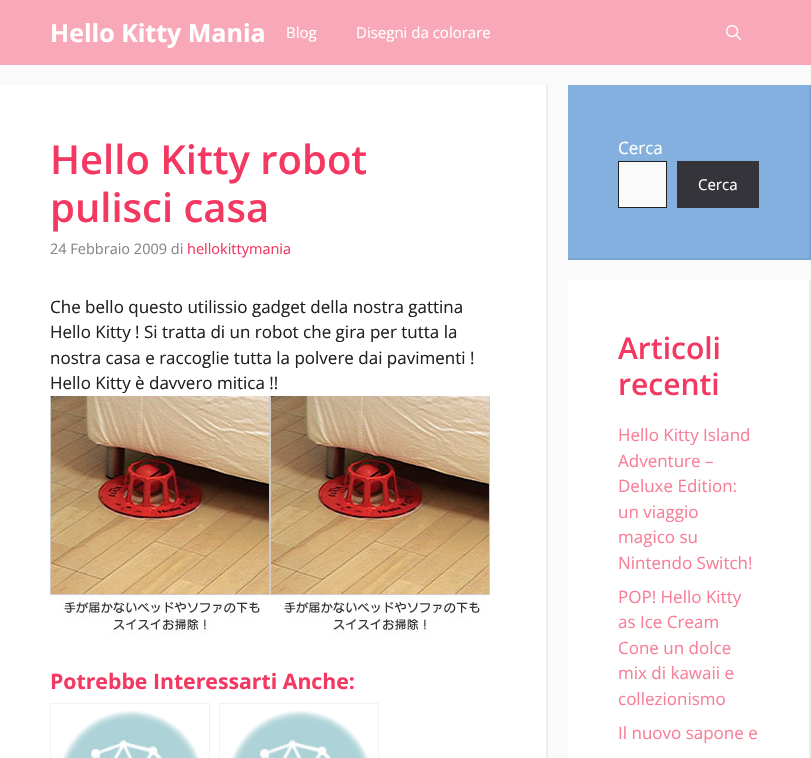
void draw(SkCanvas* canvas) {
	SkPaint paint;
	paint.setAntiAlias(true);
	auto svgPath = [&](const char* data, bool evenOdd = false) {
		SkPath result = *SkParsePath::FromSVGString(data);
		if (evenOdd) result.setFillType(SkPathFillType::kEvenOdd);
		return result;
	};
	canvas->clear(0xfffafafa);
	paint.setColor(0xfff8a8b9);
	canvas->drawRect(SkRect::MakeXYWH(0, 0, 811, 65), paint);
	SkFont f1(fontMgr->matchFamilyStyle("Open Sans", SkFontStyle::Bold()), 25);
	f1.setSubpixel(true);
	paint.setColor(0xffffffff);
	canvas->drawString("Hello Kitty Mania", 50, 42, f1, paint);
	SkFont f2(fontMgr->matchFamilyStyle("Open Sans", SkFontStyle::Normal()), 15);
	f2.setSubpixel(true);
	canvas->drawString("Blog", 286, 38, f2, paint);
	canvas->drawString("Disegni da colorare", 356, 38, f2, paint);
	canvas->drawImageRect(SkImages::DeferredFromEncodedData(SkData::MakeFromFileName("img1.png")), SkRect::MakeXYWH(726, 25, 15, 15), SkSamplingOptions());
	canvas->drawRect(SkRect::MakeXYWH(0, 85, 546, 673), paint);
	paint.setColor(0xffededed);
	canvas->drawPath(svgPath("M548 85V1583L546 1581V85Z"), paint);
	SkFont f3(fontMgr->matchFamilyStyle("Open Sans", SkFontStyle(600, SkFontStyle::kNormal_Width, SkFontStyle::kUpright_Slant)), 40);
	f3.setSubpixel(true);
	paint.setColor(0xfff33861);
	canvas->drawString("Hello Kitty robot", 50, 174, f3, paint);
	canvas->drawString("pulisci casa", 50, 222, f3, paint);
	SkFont f4(fontMgr->matchFamilyStyle("Open Sans", SkFontStyle::Normal()), 14.5);
	f4.setSubpixel(true);
	paint.setColor(0xff878787);
	canvas->drawString("24 Febbraio 2009 di", 50, 254, f4, paint);
	paint.setColor(0xfff33861);
	canvas->drawString("hellokittymania", 187, 254, f4, paint);
	SkFont f5(fontMgr->matchFamilyStyle("Open Sans", SkFontStyle::Normal()), 17);
	f5.setSubpixel(true);
	paint.setColor(0xff212121);
	canvas->drawString("Che bello questo utilissio gadget della nostra gattina", 50, 313, f5, paint);
	canvas->drawString("Hello Kitty ! Si tratta di un robot che gira per tutta la", 50, 338, f5, paint);
	canvas->drawString("nostra casa e raccoglie tutta la polvere dai pavimenti !", 50, 364, f5, paint);
	canvas->drawString("Hello Kitty è davvero mitica !!", 50, 389, f5, paint);
	canvas->drawImageRect(SkImages::DeferredFromEncodedData(SkData::MakeFromFileName("img2.png")), SkRect::MakeXYWH(50, 396, 220, 240), SkSamplingOptions());
	canvas->drawImageRect(SkImages::DeferredFromEncodedData(SkData::MakeFromFileName("img2.png")), SkRect::MakeXYWH(270, 396, 220, 240), SkSamplingOptions());
	SkFont f6(fontMgr->matchFamilyStyle("Open Sans", SkFontStyle::Bold()), 21.25);
	f6.setSubpixel(true);
	paint.setColor(0xfff33861);
	canvas->drawString("Potrebbe Interessarti Anche:", 50, 689, f6, paint);
	paint.setStroke(true);
	paint.setStrokeWidth(1);
	paint.setColor(0xfff2f2f2);
	canvas->drawRect(SkRect::MakeXYWH(50.5, 703.5, 159, 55), paint);
	canvas->drawImageRect(SkImages::DeferredFromEncodedData(SkData::MakeFromFileName("img3.png")), SkRect::MakeXYWH(63, 710, 137, 48), SkSamplingOptions());
	canvas->drawRect(SkRect::MakeXYWH(219.5, 703.5, 159, 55), paint);
	canvas->drawImageRect(SkImages::DeferredFromEncodedData(SkData::MakeFromFileName("img3.png")), SkRect::MakeXYWH(232, 710, 137, 48), SkSamplingOptions());
	paint.setStroke(false);
	paint.setColor(0xff83b0de);
	canvas->drawRect(SkRect::MakeXYWH(568, 85, 243, 175), paint);
	paint.setColor(0xff7aa4ce);
	canvas->drawPath(svgPath("M811 85V260L809 258V85Z"), paint);
	paint.setColor(0x12000000);
	canvas->drawPath(svgPath("M811 260H568V258H809Z"), paint);
	paint.setColor(0xffffffff);
	canvas->drawString("Cerca", 618, 154, f5, paint);
	paint.setColor(0xfffafafa);
	canvas->drawRect(SkRect::MakeXYWH(618.5, 161.5, 48, 46), paint);
	paint.setStroke(true);
	paint.setColor(0xff212121);
	canvas->drawRect(SkRect::MakeXYWH(618.5, 161.5, 48, 46), paint);
	paint.setStroke(false);
	paint.setColor(0xff35343a);
	canvas->drawRect(SkRect::MakeXYWH(677, 161, 82, 47), paint);
	paint.setColor(0xffffffff);
	canvas->drawString("Cerca", 698, 190, f2, paint);
	canvas->drawRect(SkRect::MakeXYWH(568, 280, 241, 478), paint);
	paint.setColor(0xffededed);
	canvas->drawPath(svgPath("M811 280V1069L809 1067V280Z"), paint);
	SkFont f7(fontMgr->matchFamilyStyle("Open Sans", SkFontStyle(600, SkFontStyle::kNormal_Width, SkFontStyle::kUpright_Slant)), 30);
	f7.setSubpixel(true);
	paint.setColor(0xfff33861);
	canvas->drawString("Articoli", 618, 359, f7, paint);
	canvas->drawString("recenti", 618, 395, f7, paint);
	paint.setColor(0xfff87e98);
	canvas->drawString("Hello Kitty Island", 618, 441, f5, paint);
	canvas->drawString("Adventure –", 618, 467, f5, paint);
	canvas->drawString("Deluxe Edition:", 618, 492, f5, paint);
	canvas->drawString("un viaggio", 618, 518, f5, paint);
	canvas->drawString("magico su", 618, 543, f5, paint);
	canvas->drawString("Nintendo Switch!", 618, 569, f5, paint);
	canvas->drawString("POP! Hello Kitty", 618, 603, f5, paint);
	canvas->drawString("as Ice Cream", 618, 628, f5, paint);
	canvas->drawString("Cone un dolce", 618, 654, f5, paint);
	canvas->drawString("mix di kawaii e", 618, 679, f5, paint);
	canvas->drawString("collezionismo", 618, 705, f5, paint);
	canvas->drawString("Il nuovo sapone e", 618, 739, f5, paint);
}
